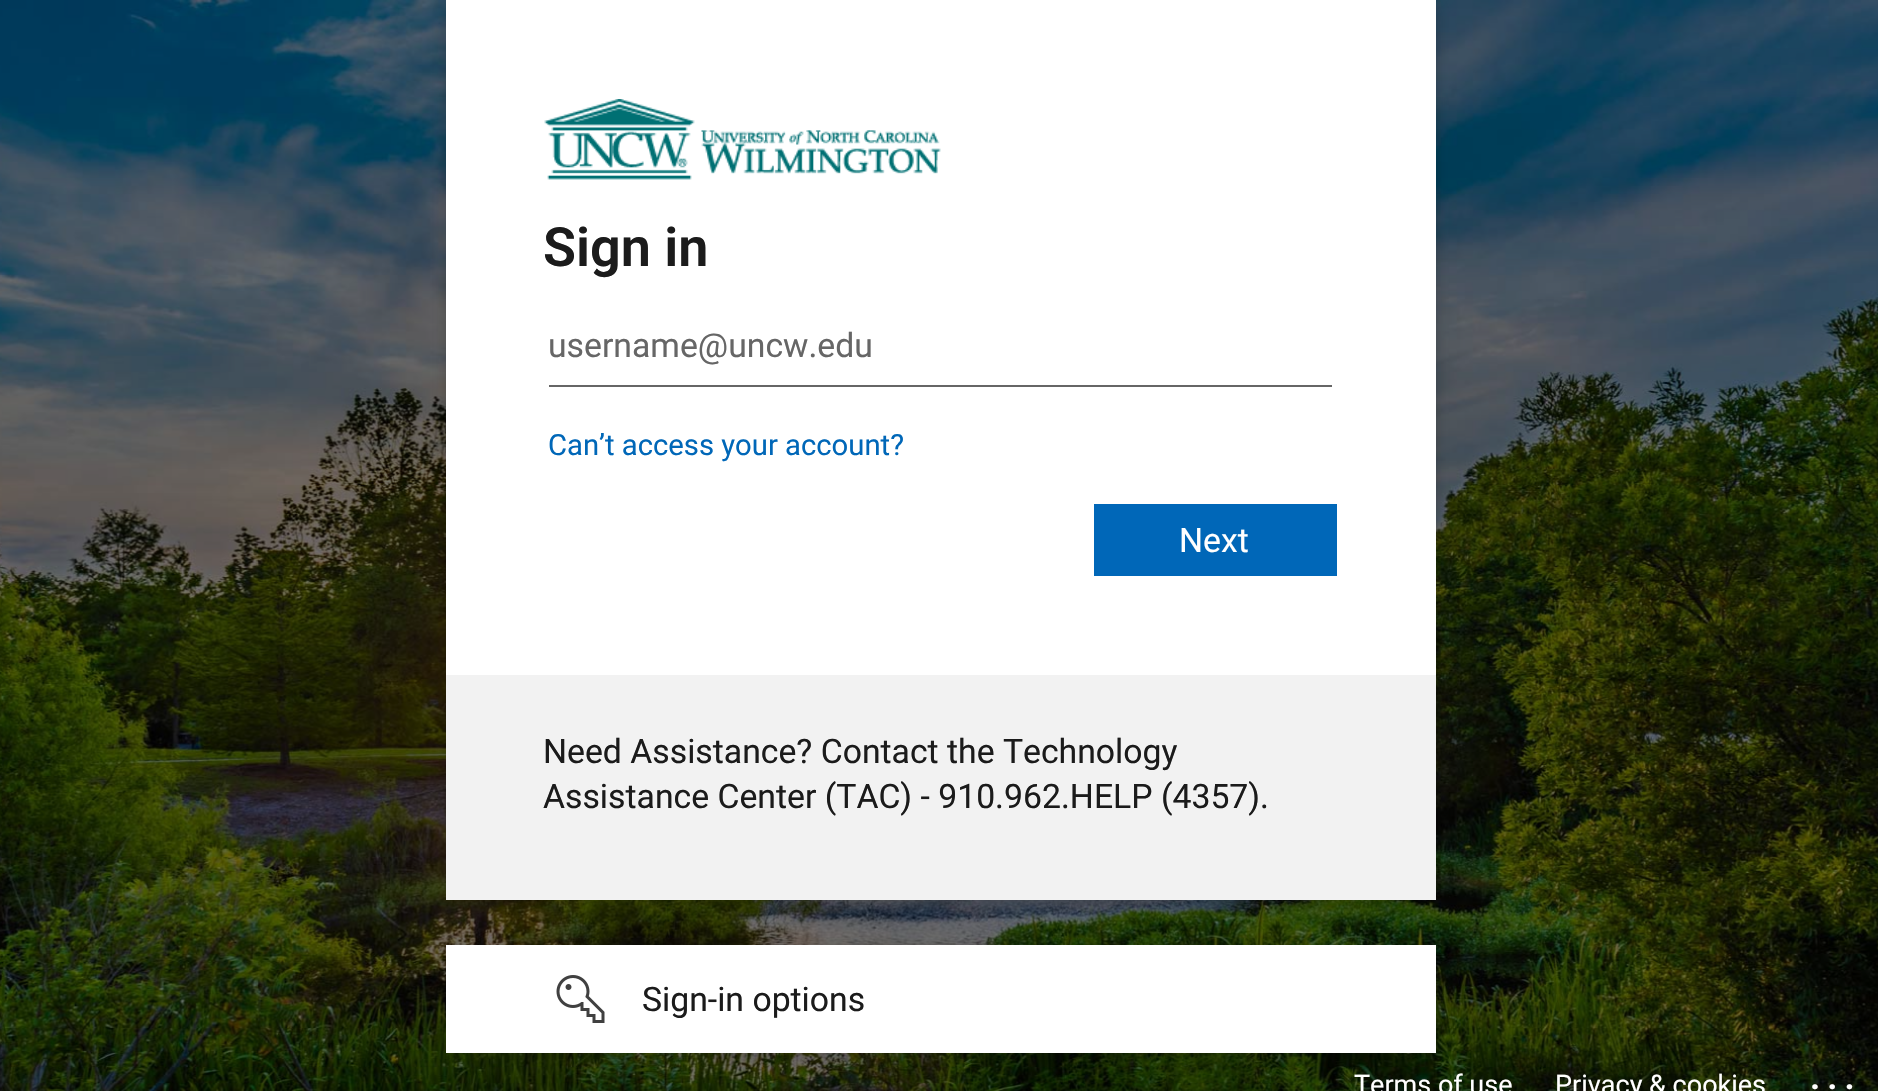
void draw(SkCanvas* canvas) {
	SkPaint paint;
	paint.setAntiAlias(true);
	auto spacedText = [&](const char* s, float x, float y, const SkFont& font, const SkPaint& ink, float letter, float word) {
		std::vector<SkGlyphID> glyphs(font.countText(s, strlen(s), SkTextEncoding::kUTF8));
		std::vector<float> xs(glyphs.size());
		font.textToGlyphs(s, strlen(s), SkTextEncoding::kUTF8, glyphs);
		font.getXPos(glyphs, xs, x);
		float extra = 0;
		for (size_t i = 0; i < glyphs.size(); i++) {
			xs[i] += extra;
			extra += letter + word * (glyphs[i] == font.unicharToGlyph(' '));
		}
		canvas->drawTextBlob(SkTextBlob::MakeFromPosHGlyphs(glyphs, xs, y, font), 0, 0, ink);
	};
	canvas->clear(0xffffffff);
	canvas->drawImageRect(SkImages::DeferredFromEncodedData(SkData::MakeFromFileName("img1.png")), SkRect::MakeXYWH(0, 0, 1878, 1091), SkSamplingOptions());
	paint.setColor(0x33000000);
	paint.setMaskFilter(SkMaskFilter::MakeBlur(kNormal_SkBlurStyle, 7));
	canvas->drawRect(SkRect::MakeXYWH(446, 5, 990, 900), paint);
	paint.setMaskFilter(nullptr);
	paint.setColor(0xffffffff);
	canvas->drawRect(SkRect::MakeXYWH(446, 0, 990, 675), paint);
	canvas->drawImageRect(SkImages::DeferredFromEncodedData(SkData::MakeFromFileName("img2.png")), SkRect::MakeXYWH(544, 99, 397, 81), SkSamplingOptions());
	SkFont f1(fontMgr->matchFamilyStyle("Roboto", SkFontStyle(600, SkFontStyle::kNormal_Width, SkFontStyle::kUpright_Slant)), 54);
	f1.setSubpixel(true);
	paint.setColor(0xff1b1b1b);
	canvas->drawString("Sign in", 543, 266, f1, paint);
	paint.setColor(0xff666666);
	canvas->drawRect(SkRect::MakeXYWH(549, 385, 783, 2), paint);
	SkFont f2(fontMgr->matchFamilyStyle("Roboto", SkFontStyle::Normal()), 33.75);
	f2.setSubpixel(true);
	canvas->drawString("username@uncw.edu", 548, 357, f2, paint);
	SkFont f3(fontMgr->matchFamilyStyle("Roboto", SkFontStyle::Normal()), 29.25);
	f3.setSubpixel(true);
	paint.setColor(0xff0067b8);
	canvas->drawString("Can’t access your account?", 548, 455, f3, paint);
	canvas->drawRect(SkRect::MakeXYWH(1094, 504, 243, 72), paint);
	paint.setColor(0xffffffff);
	canvas->drawString("Next", 1179, 552, f2, paint);
	paint.setColor(0xfff2f2f2);
	canvas->drawRect(SkRect::MakeXYWH(446, 675, 990, 225), paint);
	paint.setColor(0xff1b1b1b);
	canvas->drawString("Need Assistance? Contact the Technology", 543, 763, f2, paint);
	canvas->drawString("Assistance Center (TAC) - 910.962.HELP (4357).", 543, 808, f2, paint);
	paint.setColor(0x33000000);
	paint.setMaskFilter(SkMaskFilter::MakeBlur(kNormal_SkBlurStyle, 7));
	canvas->drawRect(SkRect::MakeXYWH(446, 950, 990, 108), paint);
	paint.setMaskFilter(nullptr);
	paint.setColor(0xffffffff);
	canvas->drawRect(SkRect::MakeXYWH(446, 945, 990, 108), paint);
	canvas->drawImageRect(SkImages::DeferredFromEncodedData(SkData::MakeFromFileName("img3.png")), SkRect::MakeXYWH(556, 975, 49, 48), SkSamplingOptions());
	paint.setColor(0xff1b1b1b);
	canvas->drawString("Sign-in options", 642, 1011, f2, paint);
	SkFont f4(fontMgr->matchFamilyStyle("Roboto", SkFontStyle::Normal()), 27);
	f4.setSubpixel(true);
	paint.setColor(0xffffffff);
	canvas->drawString("Terms of use", 1354, 1094, f4, paint);
	canvas->drawString("Privacy & cookies", 1555, 1094, f4, paint);
	SkFont f5(fontMgr->matchFamilyStyle("Roboto", SkFontStyle(600, SkFontStyle::kNormal_Width, SkFontStyle::kUpright_Slant)), 36);
	f5.setSubpixel(true);
	spacedText("...", 1810, 1089, f5, paint, 7, 0);
}
